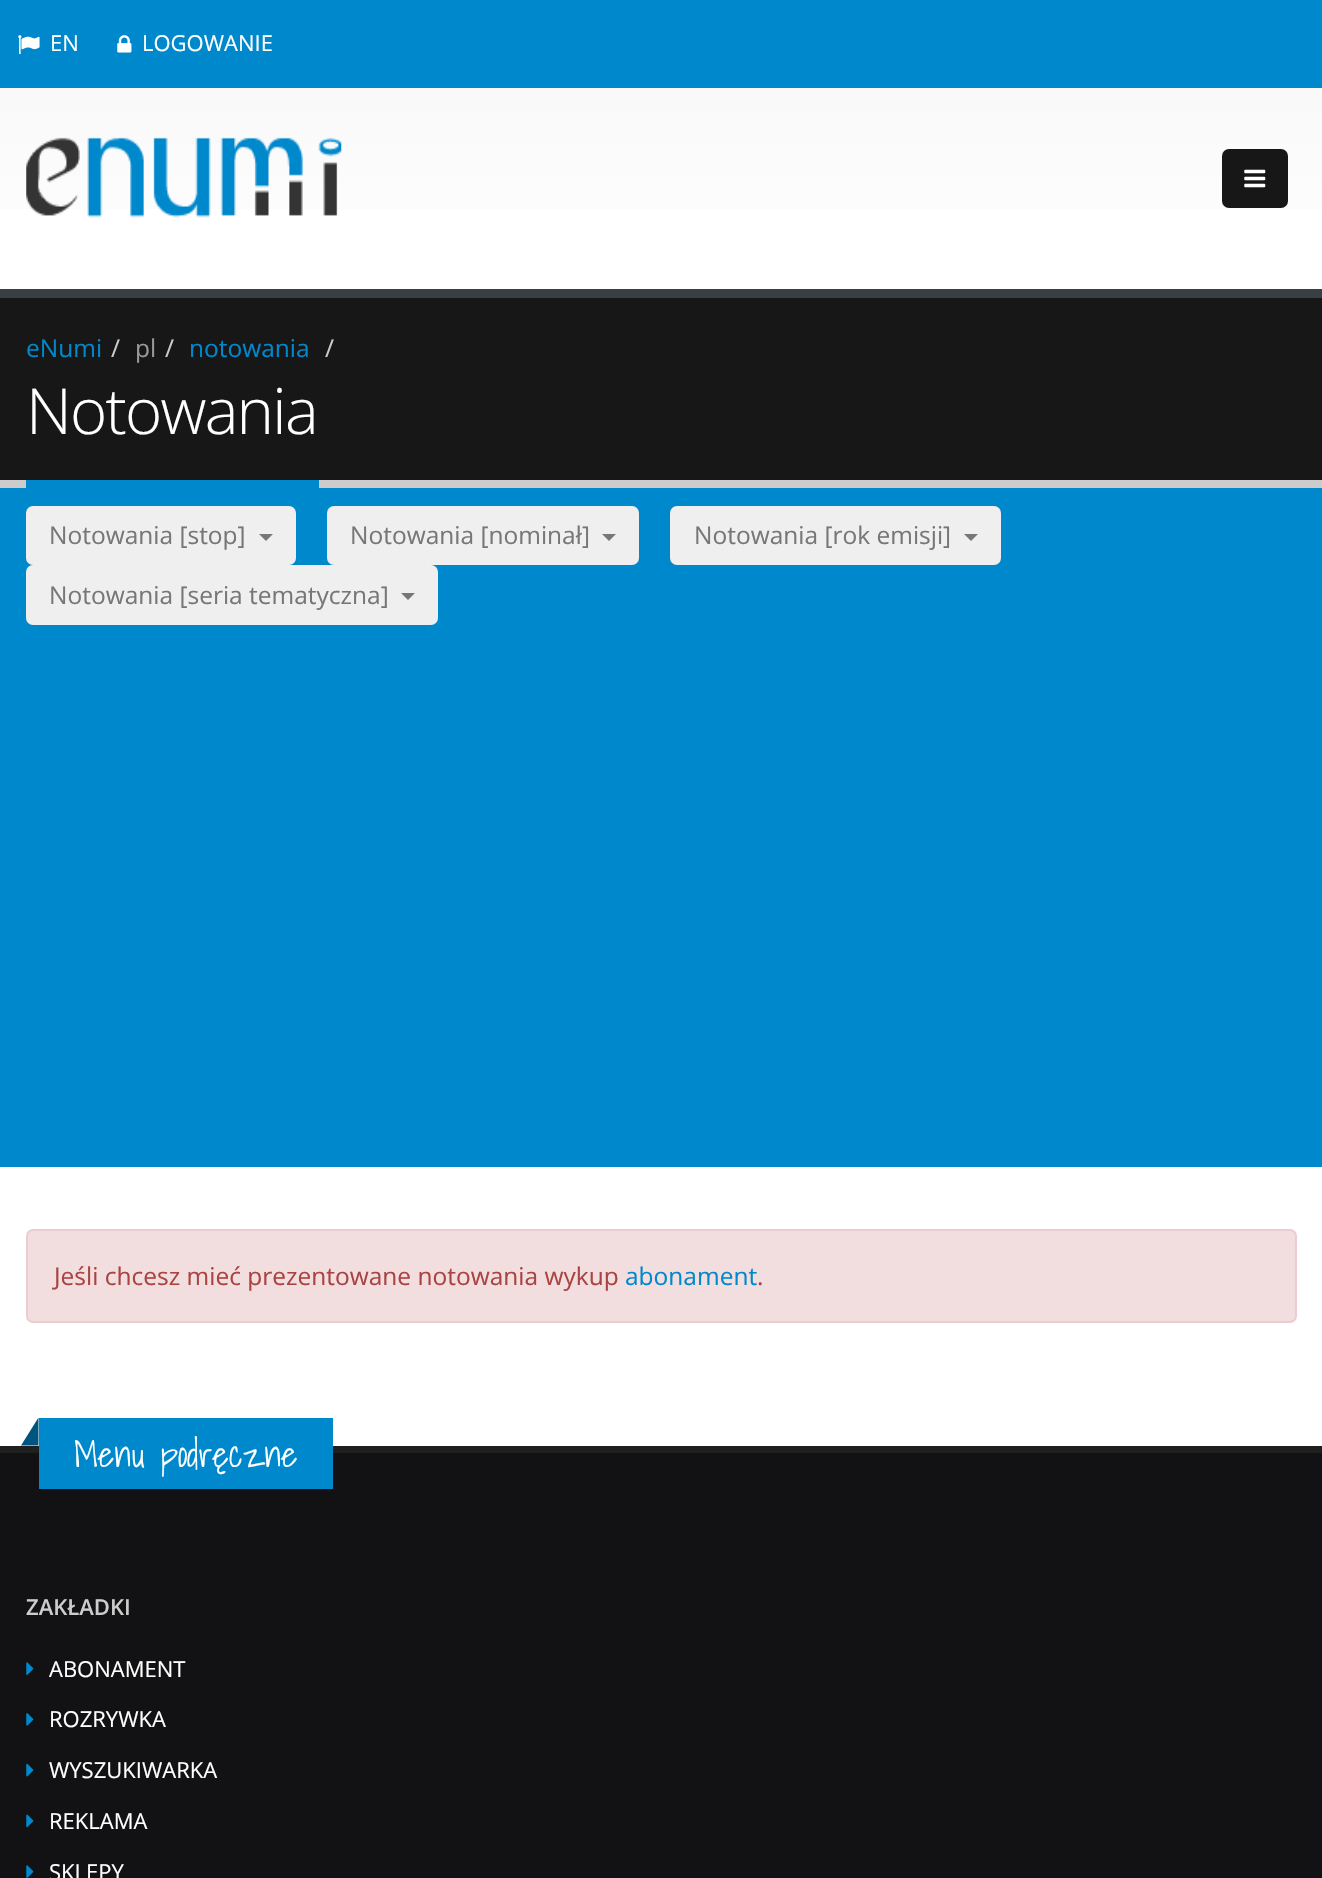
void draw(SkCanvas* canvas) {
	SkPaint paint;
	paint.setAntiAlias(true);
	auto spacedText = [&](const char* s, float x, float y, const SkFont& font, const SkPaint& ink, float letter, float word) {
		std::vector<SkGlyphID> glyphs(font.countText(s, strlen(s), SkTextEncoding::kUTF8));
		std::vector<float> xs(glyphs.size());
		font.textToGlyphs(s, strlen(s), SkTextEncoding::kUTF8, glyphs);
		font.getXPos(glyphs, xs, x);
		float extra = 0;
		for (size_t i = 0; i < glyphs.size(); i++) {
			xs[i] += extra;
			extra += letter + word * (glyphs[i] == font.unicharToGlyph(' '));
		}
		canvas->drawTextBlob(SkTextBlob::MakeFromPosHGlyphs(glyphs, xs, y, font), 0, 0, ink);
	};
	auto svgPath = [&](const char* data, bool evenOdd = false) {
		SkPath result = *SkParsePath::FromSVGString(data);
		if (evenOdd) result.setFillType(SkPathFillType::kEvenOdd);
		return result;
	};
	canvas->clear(0xffffffff);
	{
		const SkColor colors[] = {0xfff6f6f6, 0xffffffff};
		const float stops[] = {0, 1};
		const SkPoint ends[] = {{662, 0}, {662, 289}};
		paint.setShader(SkGradientShader::MakeLinear(ends, colors, stops, 2, SkTileMode::kClamp));
		paint.setAlpha(255);
	}
	canvas->drawRect(SkRect::MakeXYWH(0, 88, 1322, 121), paint);
	paint.setShader(nullptr);
	paint.setColor(0xff0088cc);
	canvas->drawRect(SkRect::MakeXYWH(0, 0, 1322, 88), paint);
	canvas->drawImageRect(SkImages::DeferredFromEncodedData(SkData::MakeFromFileName("img1.png")), SkRect::MakeXYWH(18, 35, 22, 20), SkSamplingOptions());
	SkFont f1(fontMgr->matchFamilyStyle("Open Sans", SkFontStyle::Normal()), 22);
	f1.setSubpixel(true);
	paint.setColor(0xffffffff);
	canvas->drawString("EN", 50, 51, f1, paint);
	canvas->drawImageRect(SkImages::DeferredFromEncodedData(SkData::MakeFromFileName("img2.png")), SkRect::MakeXYWH(117, 35, 15, 18), SkSamplingOptions());
	canvas->drawString("LOGOWANIE", 142, 51, f1, paint);
	canvas->drawImageRect(SkImages::DeferredFromEncodedData(SkData::MakeFromFileName("img3.png")), SkRect::MakeXYWH(26, 137, 316, 81), SkSamplingOptions());
	paint.setColor(0xff171717);
	canvas->drawRoundRect(SkRect::MakeXYWH(1222, 149, 66, 59), 7, 7, paint);
	canvas->drawImageRect(SkImages::DeferredFromEncodedData(SkData::MakeFromFileName("img4.png")), SkRect::MakeXYWH(1244, 169, 22, 19), SkSamplingOptions());
	canvas->drawRect(SkRect::MakeXYWH(0, 298, 1322, 182), paint);
	paint.setColor(0xff384045);
	canvas->drawRect(SkRect::MakeXYWH(0, 289, 1322, 9), paint);
	paint.setColor(0xffcccccc);
	canvas->drawRect(SkRect::MakeXYWH(0, 480, 1322, 8), paint);
	SkFont f2(fontMgr->matchFamilyStyle("Open Sans", SkFontStyle::Normal()), 24.5);
	f2.setSubpixel(true);
	paint.setColor(0xff0088cc);
	canvas->drawString("eNumi", 26, 357, f2, paint);
	paint.setColor(0xffcccccc);
	canvas->drawString("/", 111, 357, f2, paint);
	paint.setColor(0xff999999);
	canvas->drawString("pl", 135, 357, f2, paint);
	paint.setColor(0xffcccccc);
	canvas->drawString("/", 165, 357, f2, paint);
	paint.setColor(0xff0088cc);
	canvas->drawString("notowania", 189, 357, f2, paint);
	paint.setColor(0xffcccccc);
	canvas->drawString("/", 325, 357, f2, paint);
	paint.setColor(0xff0088cc);
	canvas->drawRect(SkRect::MakeXYWH(26, 480, 293, 8), paint);
	SkFont f3(fontMgr->matchFamilyStyle("Open Sans", SkFontStyle(300, SkFontStyle::kNormal_Width, SkFontStyle::kUpright_Slant)), 63.5);
	f3.setSubpixel(true);
	paint.setColor(0xffffffff);
	spacedText("Notowania", 26, 434, f3, paint, -1.75, 0);
	paint.setColor(0xff0088cc);
	canvas->drawRect(SkRect::MakeXYWH(0, 488, 1322, 679), paint);
	paint.setColor(0xffefefef);
	canvas->drawRoundRect(SkRect::MakeXYWH(26, 506, 270, 59), 7, 7, paint);
	paint.setColor(0xff777777);
	canvas->drawString("Notowania [stop]", 49, 544, f2, paint);
	canvas->drawPath(svgPath("M259 534H273L266 541Z"), paint);
	paint.setColor(0xffefefef);
	canvas->drawRoundRect(SkRect::MakeXYWH(327, 506, 312, 59), 7, 7, paint);
	paint.setColor(0xff777777);
	canvas->drawString("Notowania [nominał]", 350, 544, f2, paint);
	canvas->drawPath(svgPath("M602 534H616L609 541Z"), paint);
	paint.setColor(0xffefefef);
	canvas->drawRoundRect(SkRect::MakeXYWH(670, 506, 331, 59), 7, 7, paint);
	paint.setColor(0xff777777);
	canvas->drawString("Notowania [rok emisji]", 694, 544, f2, paint);
	canvas->drawPath(svgPath("M964 534H978L971 541Z"), paint);
	paint.setColor(0xffefefef);
	canvas->drawRoundRect(SkRect::MakeXYWH(26, 565, 412, 60), 7, 7, paint);
	paint.setColor(0xff777777);
	canvas->drawString("Notowania [seria tematyczna]", 49, 604, f2, paint);
	canvas->drawPath(svgPath("M401 593H415L408 600Z"), paint);
	paint.setColor(0xfff2dede);
	canvas->drawRoundRect(SkRect::MakeXYWH(27, 1230, 1269, 92), 6, 6, paint);
	paint.setStroke(true);
	paint.setStrokeWidth(2);
	paint.setColor(0xffebccd1);
	canvas->drawRoundRect(SkRect::MakeXYWH(27, 1230, 1269, 92), 6, 6, paint);
	paint.setStroke(false);
	paint.setColor(0xffa94442);
	canvas->drawString("Jeśli chcesz mieć prezentowane notowania wykup", 54, 1285, f2, paint);
	paint.setColor(0xff0088cc);
	canvas->drawString("abonament", 625, 1285, f2, paint);
	paint.setColor(0xffa94442);
	canvas->drawString(".", 757, 1285, f2, paint);
	paint.setColor(0xff121214);
	canvas->drawRect(SkRect::MakeXYWH(0, 1453, 1322, 425), paint);
	paint.setColor(0xff1f1f1f);
	canvas->drawRect(SkRect::MakeXYWH(0, 1446, 1322, 7), paint);
	paint.setColor(0xff0088cc);
	canvas->drawRect(SkRect::MakeXYWH(39, 1418, 294, 71), paint);
	paint.setColor(0xff005580);
	canvas->drawPath(svgPath("M38.5 1417.5V1445.5H21Z"), paint);
	SkFont f4(fontMgr->matchFamilyStyle("Shadows Into Light", SkFontStyle(300, SkFontStyle::kNormal_Width, SkFontStyle::kUpright_Slant)), 35.25);
	f4.setSubpixel(true);
	paint.setColor(0xffffffff);
	canvas->drawString("Menu podręczne", 74, 1467, f4, paint);
	SkFont f5(fontMgr->matchFamilyStyle("Open Sans", SkFontStyle(600, SkFontStyle::kNormal_Width, SkFontStyle::kUpright_Slant)), 22);
	f5.setSubpixel(true);
	paint.setColor(0xffcccccc);
	canvas->drawString("ZAKŁADKI", 26, 1615, f5, paint);
	canvas->drawImageRect(SkImages::DeferredFromEncodedData(SkData::MakeFromFileName("img5.png")), SkRect::MakeXYWH(26, 1662, 8, 13), SkSamplingOptions());
	paint.setColor(0xffffffff);
	canvas->drawString("ABONAMENT", 49, 1677, f1, paint);
	canvas->drawImageRect(SkImages::DeferredFromEncodedData(SkData::MakeFromFileName("img6.png")), SkRect::MakeXYWH(26, 1713, 8, 13), SkSamplingOptions());
	canvas->drawString("ROZRYWKA", 49, 1727, f1, paint);
	canvas->drawImageRect(SkImages::DeferredFromEncodedData(SkData::MakeFromFileName("img7.png")), SkRect::MakeXYWH(26, 1763, 8, 14), SkSamplingOptions());
	canvas->drawString("WYSZUKIWARKA", 49, 1778, f1, paint);
	canvas->drawImageRect(SkImages::DeferredFromEncodedData(SkData::MakeFromFileName("img8.png")), SkRect::MakeXYWH(26, 1814, 8, 14), SkSamplingOptions());
	canvas->drawString("REKLAMA", 49, 1829, f1, paint);
	canvas->drawImageRect(SkImages::DeferredFromEncodedData(SkData::MakeFromFileName("img5.png")), SkRect::MakeXYWH(26, 1865, 8, 13), SkSamplingOptions());
	canvas->drawString("SKLEPY", 49, 1880, f1, paint);
}
